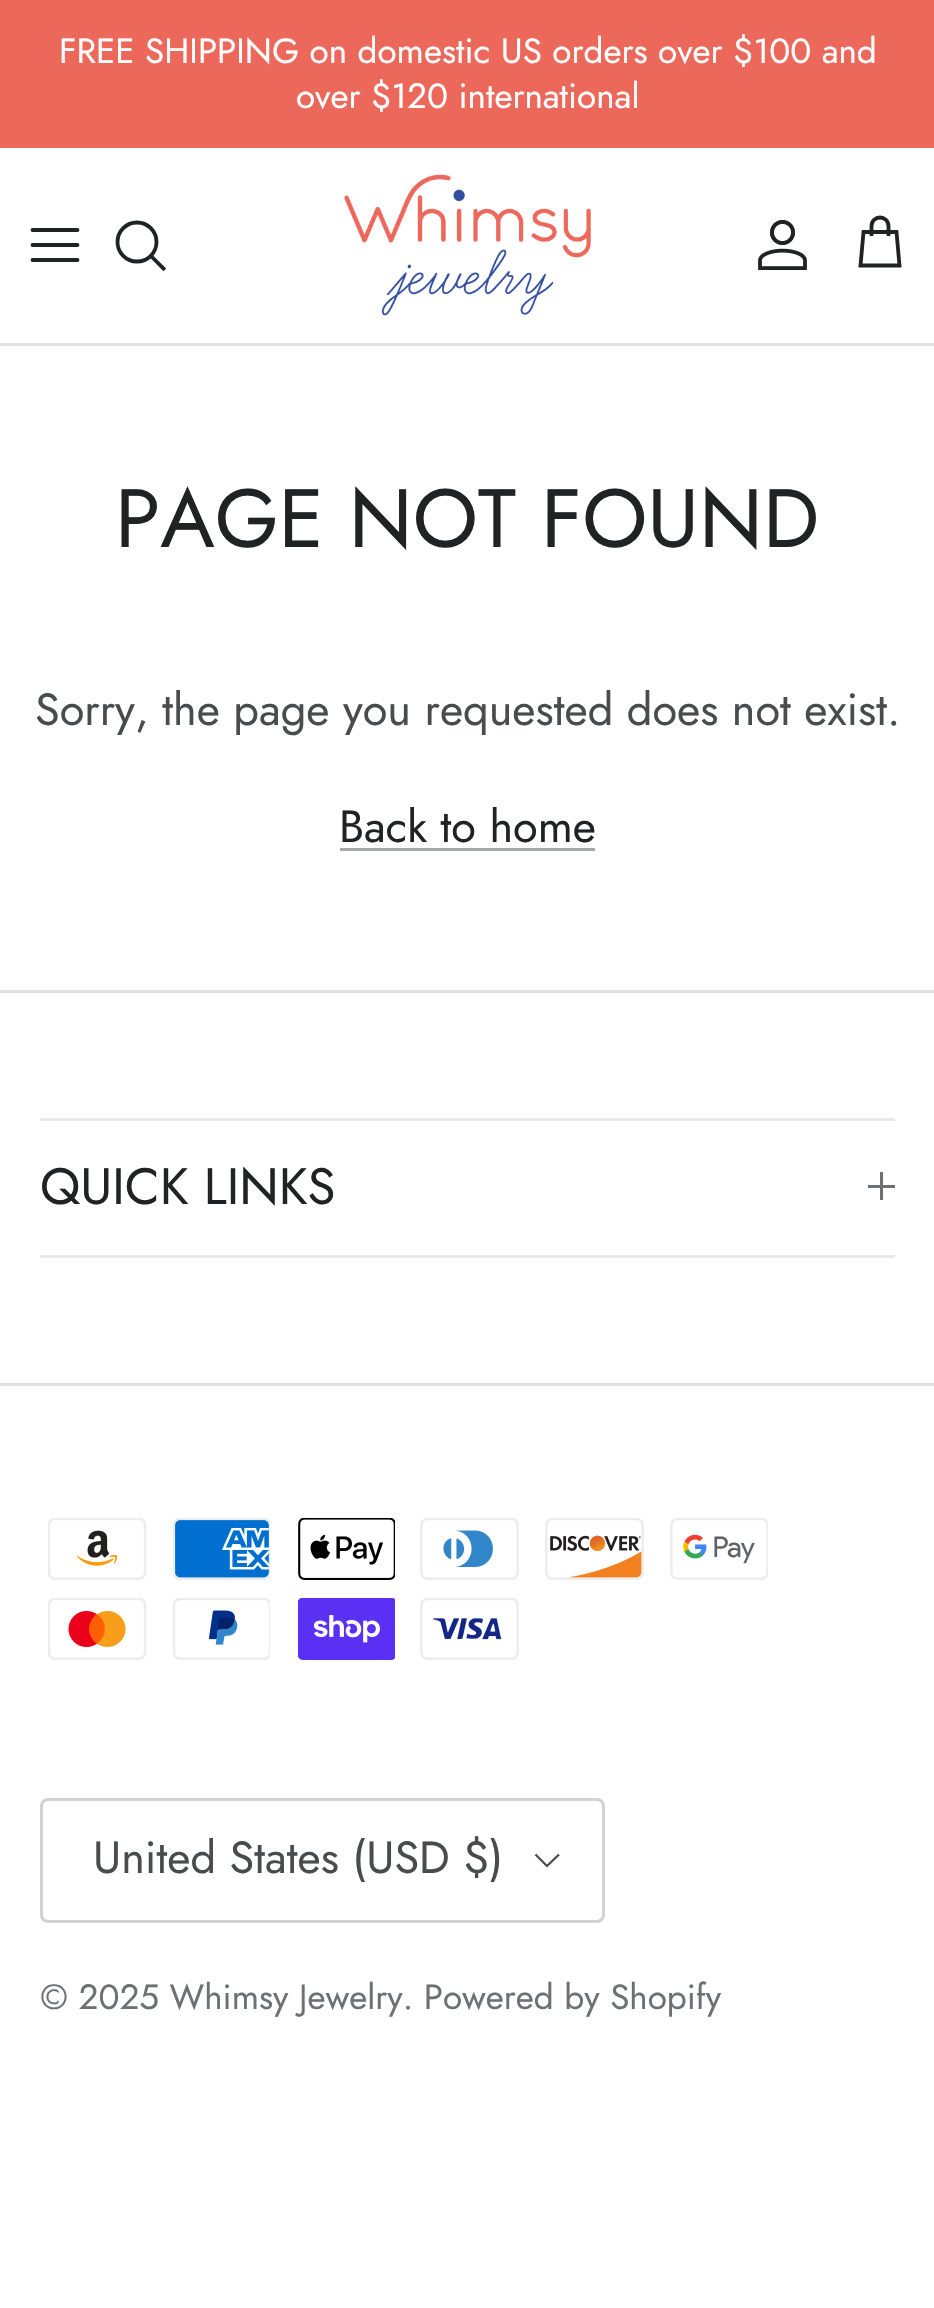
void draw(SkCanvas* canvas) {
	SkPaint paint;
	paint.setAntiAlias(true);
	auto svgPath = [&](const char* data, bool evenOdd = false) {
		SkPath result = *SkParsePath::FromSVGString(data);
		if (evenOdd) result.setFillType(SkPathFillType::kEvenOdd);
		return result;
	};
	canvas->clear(0xffffffff);
	paint.setColor(0xffec685b);
	canvas->drawRect(SkRect::MakeXYWH(0, 0, 934, 148), paint);
	SkFont f1(fontMgr->matchFamilyStyle("Jost", SkFontStyle::Normal()), 35);
	f1.setSubpixel(true);
	paint.setColor(0xffffffff);
	canvas->drawString("FREE SHIPPING on domestic US orders over $100 and", 59, 63, f1, paint);
	canvas->drawString("over $120 international", 296, 108, f1, paint);
	paint.setColor(0xffe2e2e2);
	canvas->drawRect(SkRect::MakeXYWH(0, 343, 934, 3), paint);
	paint.setStroke(true);
	paint.setStrokeWidth(3.8);
	paint.setStrokeCap(SkPaint::kRound_Cap);
	paint.setStrokeJoin(SkPaint::kRound_Join);
	paint.setColor(0xff202223);
	canvas->drawPath(svgPath("M32.5 245H77.5M32.5 230H77.5M32.5 260H77.5"), paint);
	paint.setStrokeCap(SkPaint::kButt_Cap);
	paint.setStrokeJoin(SkPaint::kMiter_Join);
	canvas->drawCircle(137, 242, 19.5, paint);
	paint.setStrokeCap(SkPaint::kSquare_Cap);
	canvas->drawPath(svgPath("M152.5 257.5L163.5 268.5"), paint);
	canvas->drawImageRect(SkImages::DeferredFromEncodedData(SkData::MakeFromFileName("img1.png")), SkRect::MakeXYWH(344, 174, 247, 142), SkSamplingOptions());
	canvas->drawImageRect(SkImages::DeferredFromEncodedData(SkData::MakeFromFileName("img2.png")), SkRect::MakeXYWH(758, 220, 49, 50), SkSamplingOptions());
	paint.setStrokeCap(SkPaint::kButt_Cap);
	canvas->drawPath(svgPath("M888.5 236V226C888.5 221 884.5 217.5 880 217.5C875.5 217.5 871.5 221 871.5 226V236M863.5 232H896.5L899.5 265.5H860.5Z"), paint);
	SkFont f2(fontMgr->matchFamilyStyle("Jost", SkFontStyle::Normal()), 82.5);
	f2.setSubpixel(true);
	paint.setStroke(false);
	canvas->drawString("PAGE NOT FOUND", 115, 547, f2, paint);
	SkFont f3(fontMgr->matchFamilyStyle("Jost", SkFontStyle::Normal()), 45);
	f3.setSubpixel(true);
	paint.setColor(0xff494c4e);
	canvas->drawString("Sorry, the page you requested does not exist.", 35, 725, f3, paint);
	paint.setColor(0xff202223);
	canvas->drawString("Back to home", 339, 842, f3, paint);
	paint.setColor(0xffa6a7a7);
	canvas->drawRect(SkRect::MakeXYWH(340, 848, 255, 3), paint);
	paint.setColor(0xffe0e0e0);
	canvas->drawRect(SkRect::MakeXYWH(0, 990, 934, 3), paint);
	paint.setColor(0xffe9eaea);
	canvas->drawRect(SkRect::MakeXYWH(40, 1118, 855, 3), paint);
	canvas->drawRect(SkRect::MakeXYWH(40, 1255, 855, 3), paint);
	SkFont f4(fontMgr->matchFamilyStyle("Jost", SkFontStyle::Normal()), 51);
	f4.setSubpixel(true);
	paint.setColor(0xff202223);
	canvas->drawString("QUICK LINKS", 40, 1204, f4, paint);
	paint.setColor(0xff6d7175);
	canvas->drawRect(SkRect::MakeXYWH(880, 1172, 3, 28), paint);
	canvas->drawRect(SkRect::MakeXYWH(868, 1185, 27, 3), paint);
	paint.setColor(0xffe0e0e0);
	canvas->drawRect(SkRect::MakeXYWH(0, 1383, 934, 3), paint);
	canvas->drawImageRect(SkImages::DeferredFromEncodedData(SkData::MakeFromFileName("img3.png")), SkRect::MakeXYWH(48, 1518, 99, 62), SkSamplingOptions());
	canvas->drawImageRect(SkImages::DeferredFromEncodedData(SkData::MakeFromFileName("img4.png")), SkRect::MakeXYWH(173, 1518, 97, 62), SkSamplingOptions());
	canvas->drawImageRect(SkImages::DeferredFromEncodedData(SkData::MakeFromFileName("img5.png")), SkRect::MakeXYWH(298, 1518, 97, 62), SkSamplingOptions());
	canvas->drawImageRect(SkImages::DeferredFromEncodedData(SkData::MakeFromFileName("img6.png")), SkRect::MakeXYWH(420, 1518, 99, 62), SkSamplingOptions());
	canvas->drawImageRect(SkImages::DeferredFromEncodedData(SkData::MakeFromFileName("img7.png")), SkRect::MakeXYWH(545, 1518, 99, 62), SkSamplingOptions());
	canvas->drawImageRect(SkImages::DeferredFromEncodedData(SkData::MakeFromFileName("img8.png")), SkRect::MakeXYWH(670, 1518, 98, 62), SkSamplingOptions());
	canvas->drawImageRect(SkImages::DeferredFromEncodedData(SkData::MakeFromFileName("img9.png")), SkRect::MakeXYWH(48, 1598, 99, 62), SkSamplingOptions());
	canvas->drawImageRect(SkImages::DeferredFromEncodedData(SkData::MakeFromFileName("img10.png")), SkRect::MakeXYWH(173, 1598, 97, 62), SkSamplingOptions());
	canvas->drawImageRect(SkImages::DeferredFromEncodedData(SkData::MakeFromFileName("img11.png")), SkRect::MakeXYWH(298, 1598, 97, 62), SkSamplingOptions());
	canvas->drawImageRect(SkImages::DeferredFromEncodedData(SkData::MakeFromFileName("img12.png")), SkRect::MakeXYWH(420, 1598, 99, 62), SkSamplingOptions());
	paint.setStroke(true);
	paint.setStrokeWidth(3);
	paint.setColor(0xffd2d2d3);
	canvas->drawRoundRect(SkRect::MakeXYWH(41.5, 1799.5, 562, 122), 6.5, 6.5, paint);
	paint.setStroke(false);
	paint.setColor(0xff494c4e);
	canvas->drawString("United States (USD $)", 93, 1873, f3, paint);
	paint.setStroke(true);
	paint.setStrokeWidth(2.3);
	canvas->drawPath(svgPath("M559 1854.5L547 1866L535.5 1854.5"), paint);
	paint.setStroke(false);
	paint.setColor(0xff6d7175);
	canvas->drawString("© 2025 Whimsy Jewelry. Powered by Shopify", 40, 2009, f1, paint);
}
